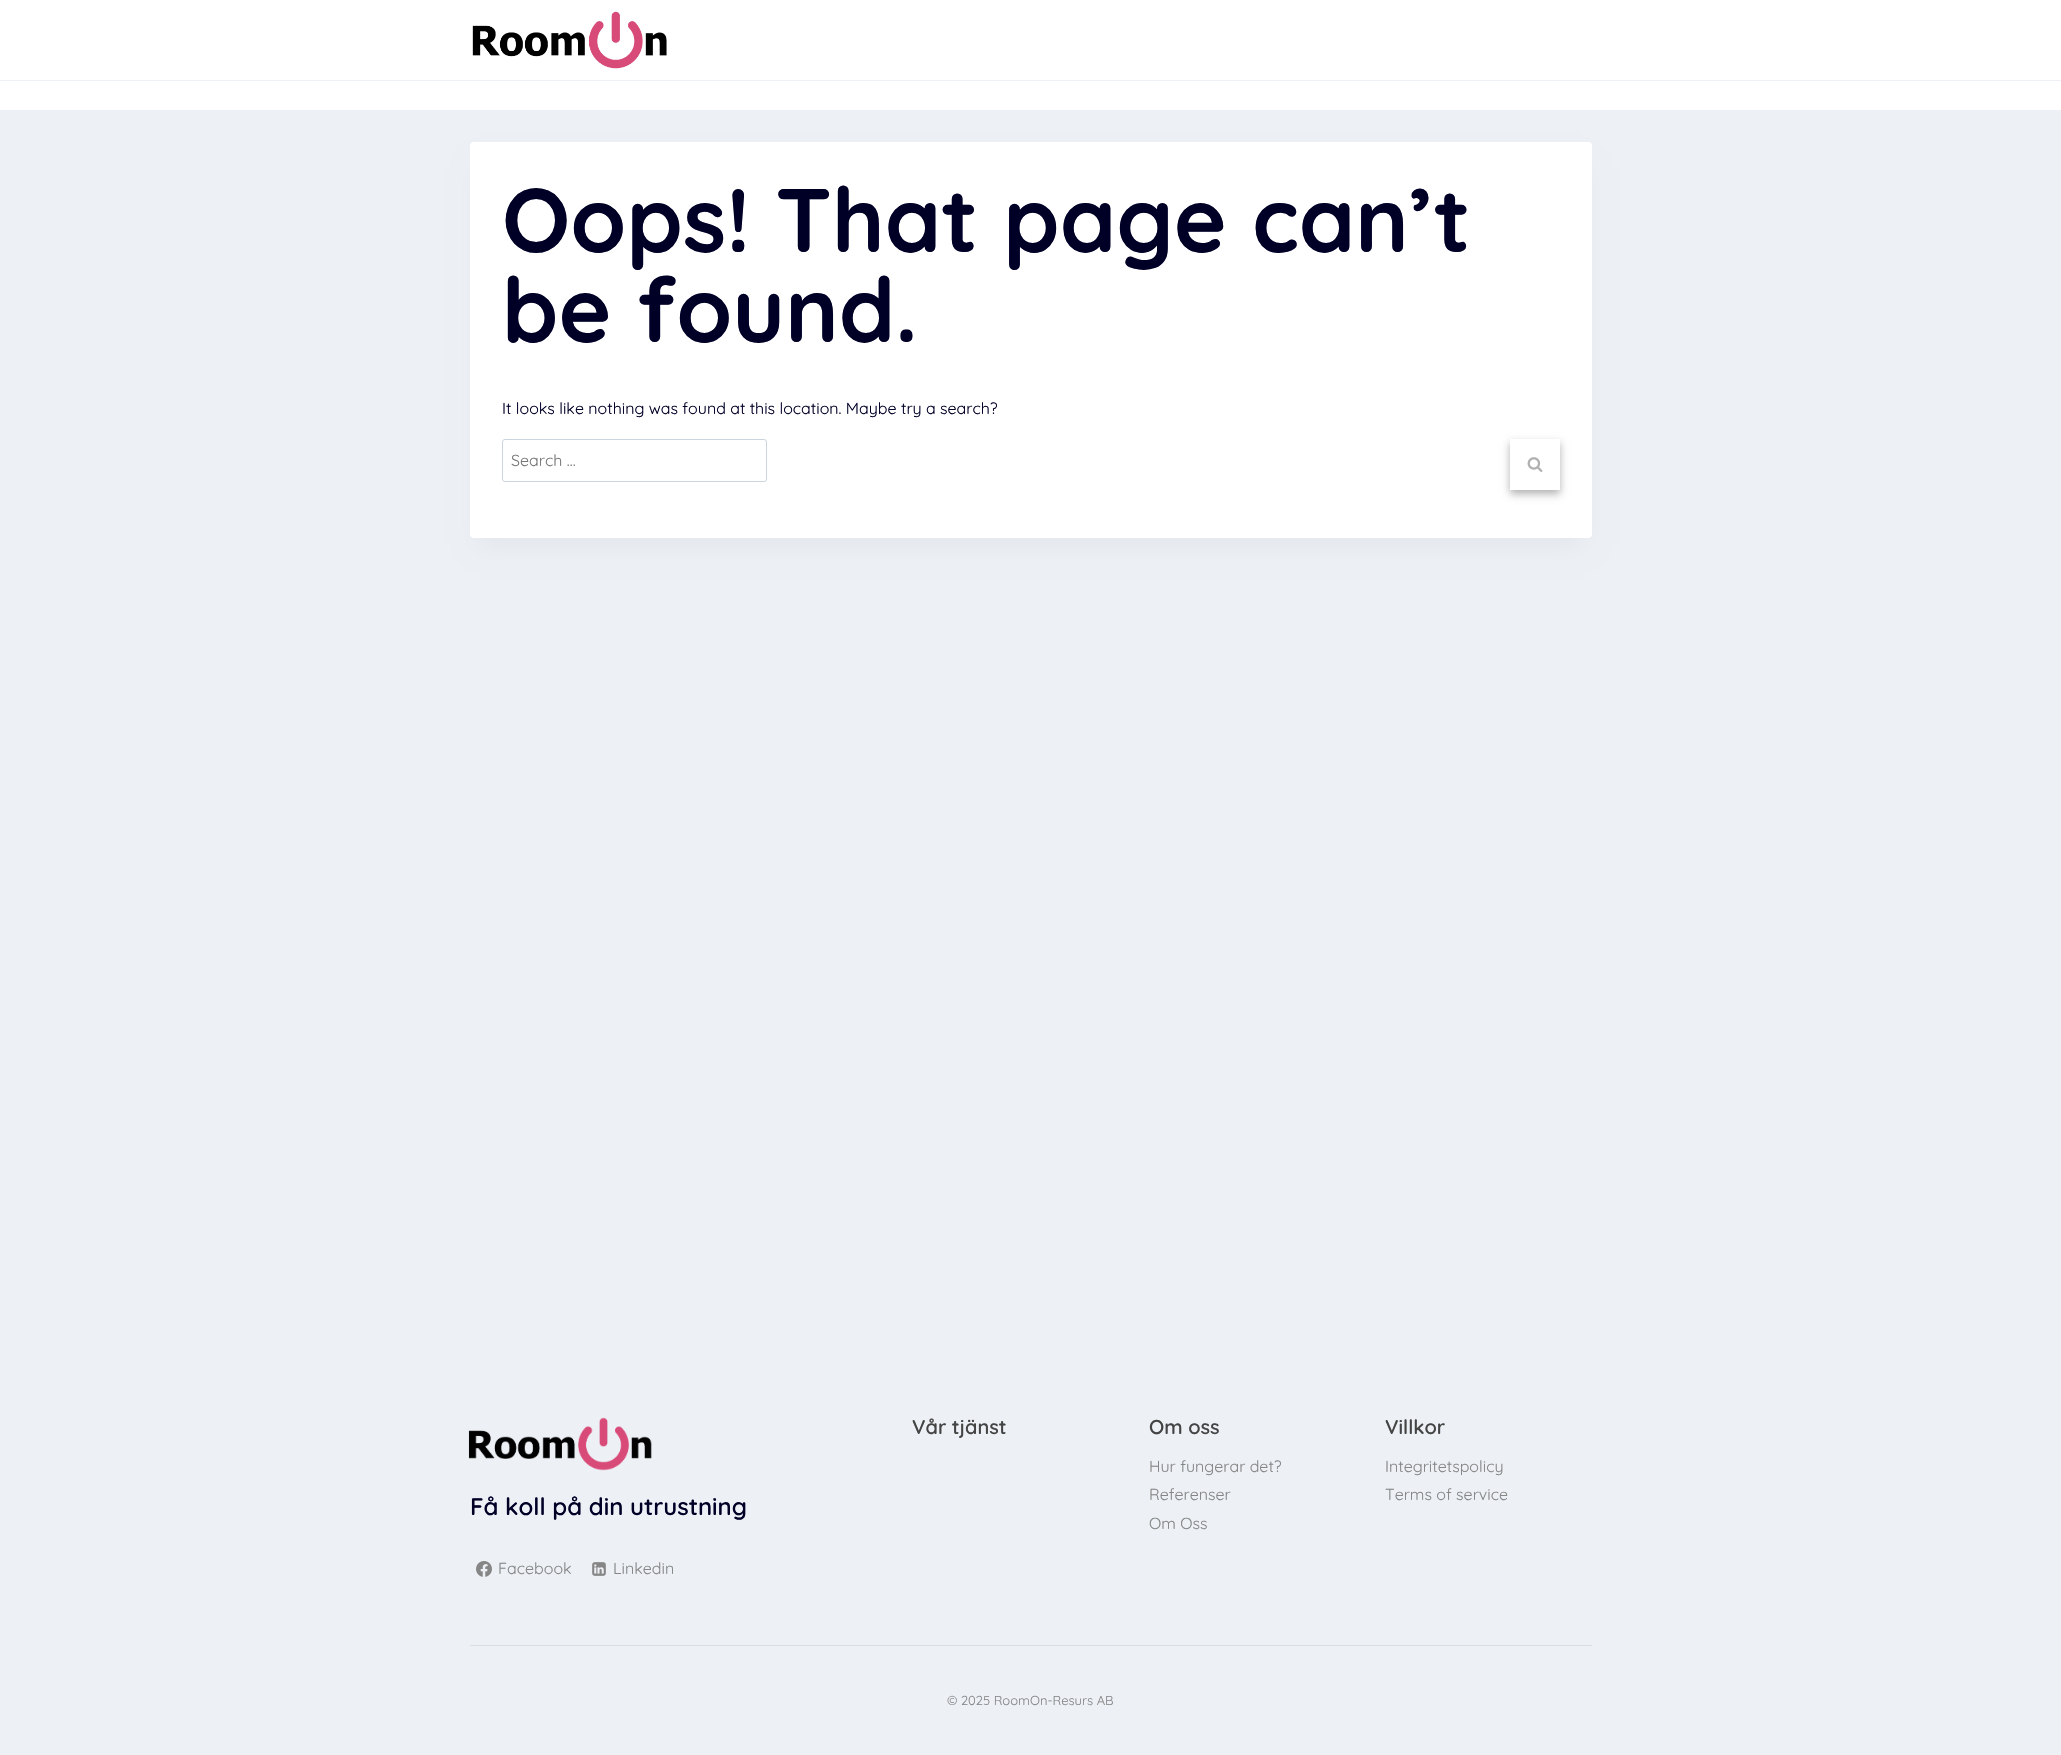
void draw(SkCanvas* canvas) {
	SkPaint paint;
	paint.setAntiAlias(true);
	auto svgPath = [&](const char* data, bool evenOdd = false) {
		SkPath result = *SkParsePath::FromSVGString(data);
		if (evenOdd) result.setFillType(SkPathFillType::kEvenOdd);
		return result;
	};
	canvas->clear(0xffedf1f6);
	paint.setColor(0xffffffff);
	canvas->drawRect(SkRect::MakeXYWH(0, 0, 2061, 110), paint);
	paint.setColor(0xffedf1f6);
	canvas->drawRect(SkRect::MakeXYWH(0, 80, 2061, 1), paint);
	canvas->drawImageRect(SkImages::DeferredFromEncodedData(SkData::MakeFromFileName("img1.png")), SkRect::MakeXYWH(472, 11, 195, 58), SkSamplingOptions());
	paint.setColor(0x0d000000);
	paint.setMaskFilter(SkMaskFilter::MakeBlur(kNormal_SkBlurStyle, 12.5));
	canvas->drawRect(SkRect::MakeXYWH(480, 167, 1102, 376), paint);
	paint.setMaskFilter(nullptr);
	paint.setColor(0xffffffff);
	canvas->drawRoundRect(SkRect::MakeXYWH(470, 142, 1122, 396), 4, 4, paint);
	SkFont f1(fontMgr->matchFamilyStyle("Quicksand", SkFontStyle::Bold()), 90);
	f1.setSubpixel(true);
	paint.setColor(0xff000027);
	canvas->drawString("Oops! That page can’t", 502, 252, f1, paint);
	canvas->drawString("be found.", 502, 342, f1, paint);
	SkFont f2(fontMgr->matchFamilyStyle("Quicksand", SkFontStyle::Normal()), 16);
	f2.setSubpixel(true);
	canvas->drawString("It looks like nothing was found at this location. Maybe try a search?", 502, 414, f2, paint);
	paint.setStroke(true);
	paint.setStrokeWidth(1);
	paint.setColor(0xffcbd5e0);
	canvas->drawRoundRect(SkRect::MakeXYWH(502.5, 439.5, 264, 42), 2.5, 2.5, paint);
	paint.setStroke(false);
	paint.setColor(0xff777777);
	canvas->drawString("Search …", 511, 466, f2, paint);
	canvas->save();
	canvas->clipPath(svgPath("M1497 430H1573V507H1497ZM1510 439H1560V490H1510Z", true), true);
	paint.setColor(0x4d000000);
	paint.setMaskFilter(SkMaskFilter::MakeBlur(kNormal_SkBlurStyle, 4));
	canvas->drawRect(SkRect::MakeXYWH(1510, 443, 50, 51), paint);
	paint.setMaskFilter(nullptr);
	canvas->restore();
	canvas->drawImageRect(SkImages::DeferredFromEncodedData(SkData::MakeFromFileName("img2.png")), SkRect::MakeXYWH(1527, 457, 16, 15), SkSamplingOptions());
	SkFont f3(fontMgr->matchFamilyStyle("Quicksand", SkFontStyle(600, SkFontStyle::kNormal_Width, SkFontStyle::kUpright_Slant)), 20);
	f3.setSubpixel(true);
	paint.setColor(0xff444444);
	canvas->drawString("Vår tjänst", 912, 1434, f3, paint);
	canvas->drawString("Om oss", 1149, 1434, f3, paint);
	paint.setColor(0xff868686);
	canvas->drawString("Hur fungerar det?", 1149, 1472, f2, paint);
	canvas->drawString("Referenser", 1149, 1500, f2, paint);
	canvas->drawString("Om Oss", 1149, 1529, f2, paint);
	paint.setColor(0xff444444);
	canvas->drawString("Villkor", 1385, 1434, f3, paint);
	paint.setColor(0xff868686);
	canvas->drawString("Integritetspolicy", 1385, 1472, f2, paint);
	canvas->drawString("Terms of service", 1385, 1500, f2, paint);
	canvas->drawImageRect(SkImages::DeferredFromEncodedData(SkData::MakeFromFileName("img3.png")), SkRect::MakeXYWH(468, 1417, 184, 54), SkSamplingOptions());
	SkFont f4(fontMgr->matchFamilyStyle("Quicksand", SkFontStyle(600, SkFontStyle::kNormal_Width, SkFontStyle::kUpright_Slant)), 24);
	f4.setSubpixel(true);
	paint.setColor(0xff000027);
	canvas->drawString("Få koll på din utrustning", 470, 1515, f4, paint);
	canvas->drawImageRect(SkImages::DeferredFromEncodedData(SkData::MakeFromFileName("img4.png")), SkRect::MakeXYWH(476, 1561, 16, 16), SkSamplingOptions());
	paint.setColor(0xff868686);
	canvas->drawString("Facebook", 498, 1574, f2, paint);
	canvas->drawImageRect(SkImages::DeferredFromEncodedData(SkData::MakeFromFileName("img5.png")), SkRect::MakeXYWH(592, 1562, 14, 14), SkSamplingOptions());
	canvas->drawString("Linkedin", 613, 1574, f2, paint);
	paint.setColor(0xffdbdee1);
	canvas->drawRect(SkRect::MakeXYWH(470, 1645, 1122, 1), paint);
	SkFont f5(fontMgr->matchFamilyStyle("Quicksand", SkFontStyle::Normal()), 13);
	f5.setSubpixel(true);
	paint.setColor(0xff868686);
	canvas->drawString("© 2025 RoomOn-Resurs AB", 947, 1705, f5, paint);
}
